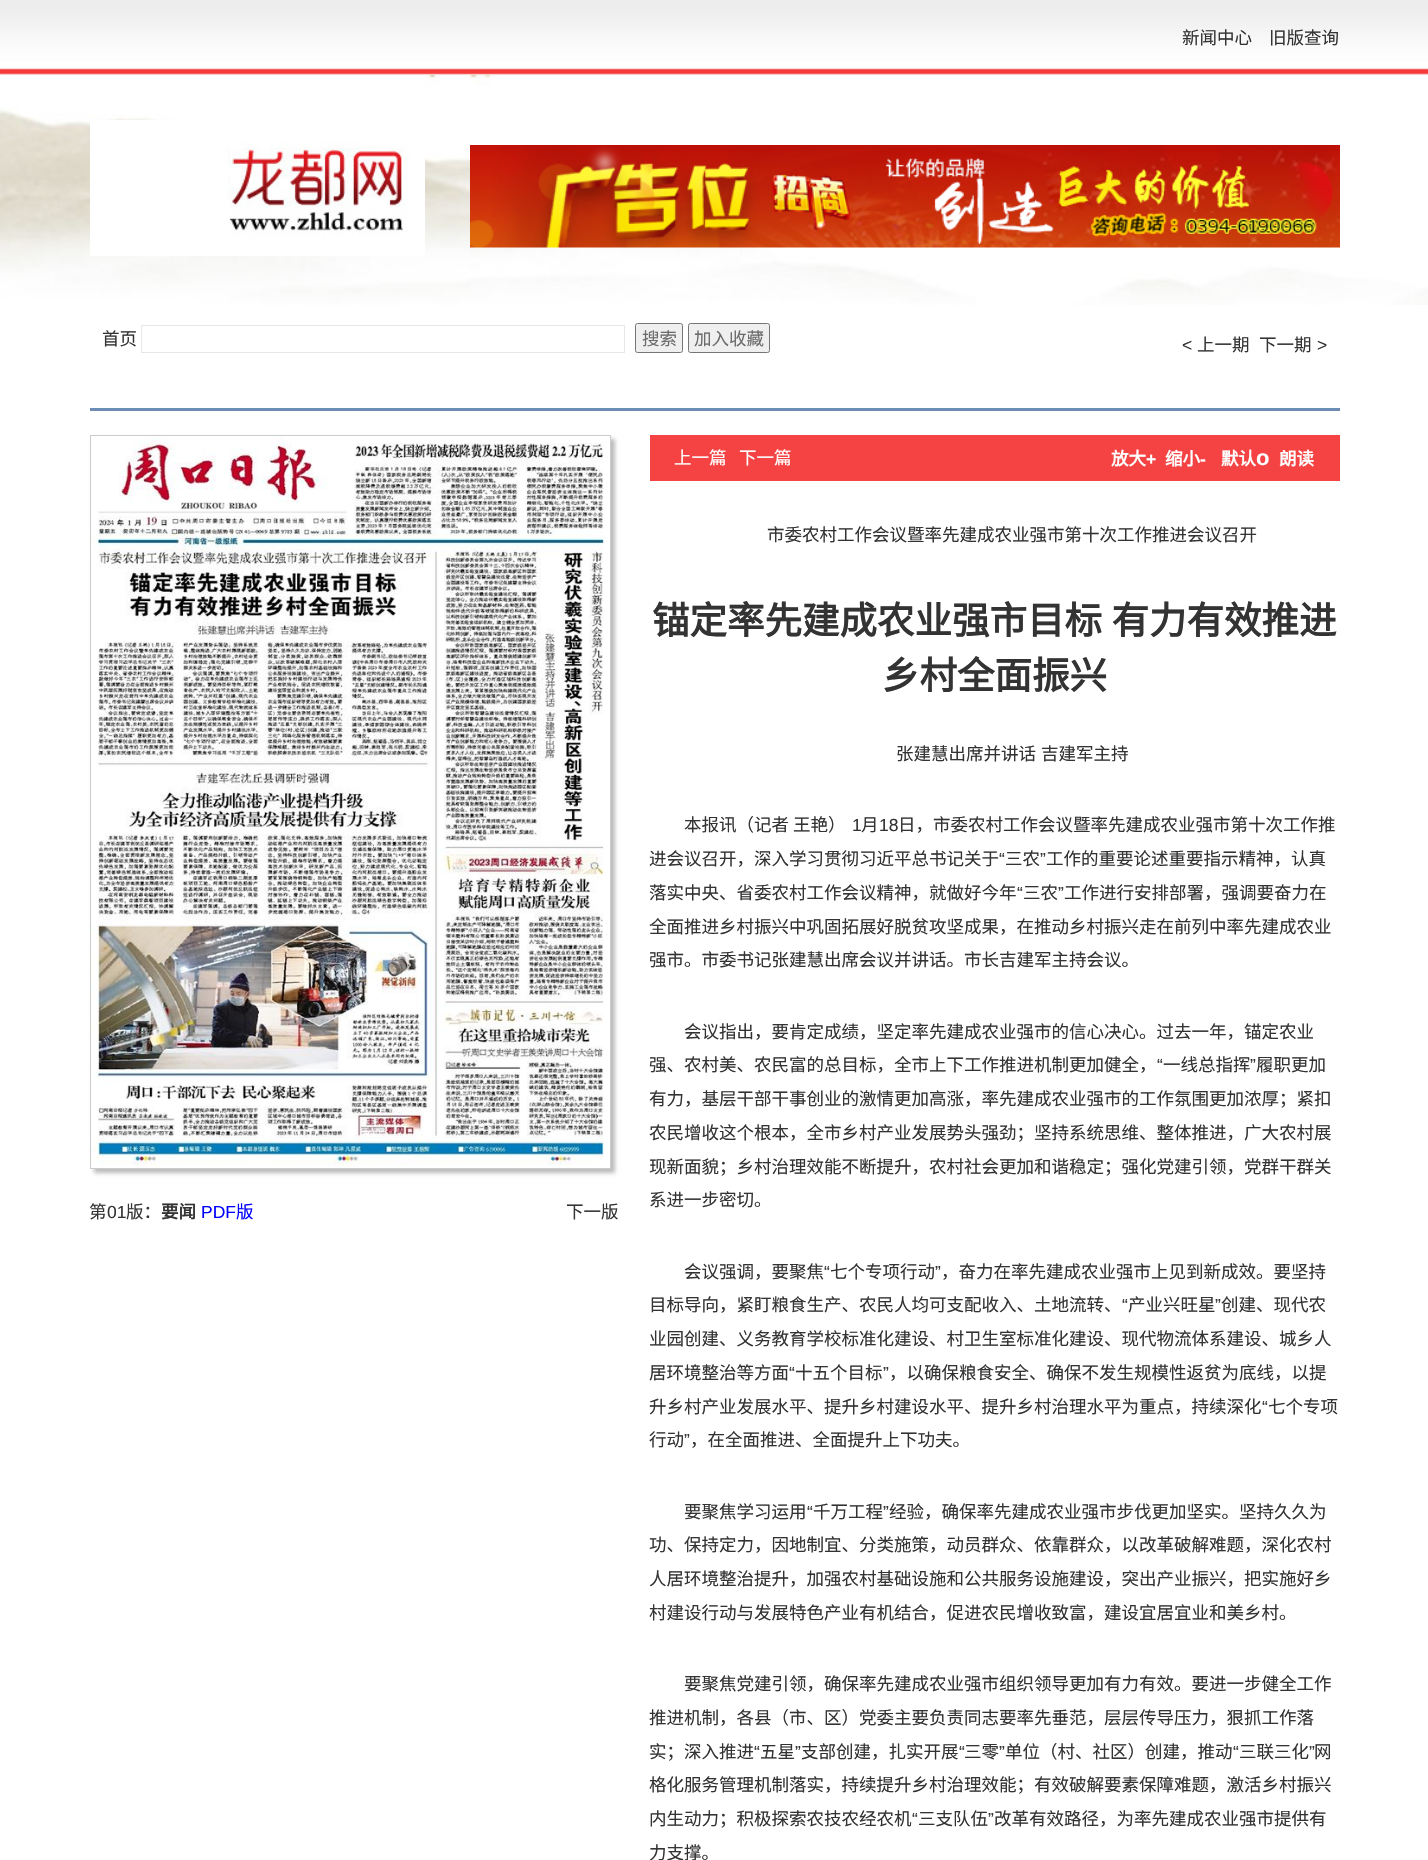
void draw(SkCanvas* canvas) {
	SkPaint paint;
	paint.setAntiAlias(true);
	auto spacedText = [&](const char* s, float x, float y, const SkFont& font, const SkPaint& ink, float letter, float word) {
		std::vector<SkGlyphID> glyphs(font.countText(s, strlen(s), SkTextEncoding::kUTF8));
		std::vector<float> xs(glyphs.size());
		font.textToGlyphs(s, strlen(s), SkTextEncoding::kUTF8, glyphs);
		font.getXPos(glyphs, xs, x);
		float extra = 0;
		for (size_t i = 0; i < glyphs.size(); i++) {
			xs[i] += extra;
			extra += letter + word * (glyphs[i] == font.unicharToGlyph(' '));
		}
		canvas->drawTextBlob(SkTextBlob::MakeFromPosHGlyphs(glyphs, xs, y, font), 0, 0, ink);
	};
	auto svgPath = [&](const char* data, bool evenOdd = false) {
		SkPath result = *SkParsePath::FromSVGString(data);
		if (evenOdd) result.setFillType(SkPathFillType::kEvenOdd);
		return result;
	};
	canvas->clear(0xffffffff);
	canvas->drawImageRect(SkImages::DeferredFromEncodedData(SkData::MakeFromFileName("img1.png")), SkRect::MakeXYWH(0, 0, 1428, 75), SkSamplingOptions());
	SkFont f1(fontMgr->matchFamilyStyle("Noto Sans CJK SC", SkFontStyle::Normal()), 17.5);
	f1.setSubpixel(true);
	paint.setColor(0xff333333);
	canvas->drawString("新闻中心", 1182, 44, f1, paint);
	canvas->drawString("旧版查询", 1269, 44, f1, paint);
	canvas->drawImageRect(SkImages::DeferredFromEncodedData(SkData::MakeFromFileName("img2.png")), SkRect::MakeXYWH(0, 75, 1428, 230), SkSamplingOptions());
	canvas->drawImageRect(SkImages::DeferredFromEncodedData(SkData::MakeFromFileName("img3.png")), SkRect::MakeXYWH(90, 120, 335, 136), SkSamplingOptions());
	canvas->drawImageRect(SkImages::DeferredFromEncodedData(SkData::MakeFromFileName("img4.png")), SkRect::MakeXYWH(470, 145, 870, 103), SkSamplingOptions());
	paint.setColor(0xff6b8cb5);
	canvas->drawRect(SkRect::MakeXYWH(90, 408, 1250, 3), paint);
	paint.setColor(0xff333333);
	canvas->drawString("首页", 102, 345, f1, paint);
	paint.setStroke(true);
	paint.setStrokeWidth(1);
	paint.setColor(0xffe7e7e7);
	canvas->drawRect(SkRect::MakeXYWH(141.5, 325.5, 483, 27), paint);
	paint.setStroke(false);
	paint.setColor(0xffefefef);
	canvas->drawRoundRect(SkRect::MakeXYWH(635.5, 323.5, 47, 29), 2, 2, paint);
	paint.setStroke(true);
	paint.setColor(0xff767676);
	canvas->drawRoundRect(SkRect::MakeXYWH(635.5, 323.5, 47, 29), 2, 2, paint);
	paint.setStroke(false);
	paint.setColor(0xff6b6b6b);
	canvas->drawString("搜索", 642, 345, f1, paint);
	paint.setColor(0xffefefef);
	canvas->drawRoundRect(SkRect::MakeXYWH(688.5, 323.5, 81, 29), 2, 2, paint);
	paint.setStroke(true);
	paint.setColor(0xff767676);
	canvas->drawRoundRect(SkRect::MakeXYWH(688.5, 323.5, 81, 29), 2, 2, paint);
	paint.setStroke(false);
	paint.setColor(0xff6b6b6b);
	canvas->drawString("加入收藏", 694, 345, f1, paint);
	SkFont f2(fontMgr->matchFamilyStyle("Liberation Sans", SkFontStyle::Normal()), 17.5);
	f2.setSubpixel(true);
	paint.setColor(0xff333333);
	canvas->drawString("<", 1182, 351, f2, paint);
	canvas->drawString("上一期", 1197, 351, f1, paint);
	canvas->drawString("下一期", 1259, 351, f1, paint);
	canvas->drawString(">", 1317, 351, f2, paint);
	canvas->save();
	canvas->clipPath(svgPath("M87 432H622V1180H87ZM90 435H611V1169H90Z", true), true);
	paint.setColor(0xffbcbcbc);
	paint.setMaskFilter(SkMaskFilter::MakeBlur(kNormal_SkBlurStyle, 2));
	canvas->drawRect(SkRect::MakeXYWH(94, 439, 521, 734), paint);
	paint.setMaskFilter(nullptr);
	canvas->restore();
	paint.setStroke(true);
	paint.setColor(0xffcbcbcb);
	canvas->drawRect(SkRect::MakeXYWH(90.5, 435.5, 520, 733), paint);
	canvas->drawImageRect(SkImages::DeferredFromEncodedData(SkData::MakeFromFileName("img5.png")), SkRect::MakeXYWH(91, 436, 514, 730), SkSamplingOptions());
	paint.setStroke(false);
	paint.setColor(0xff333333);
	canvas->drawString("第", 89, 1218, f1, paint);
	canvas->drawString("01", 107, 1218, f2, paint);
	canvas->drawString("版：", 126, 1218, f1, paint);
	SkFont f3(fontMgr->matchFamilyStyle("Noto Sans CJK SC", SkFontStyle::Bold()), 17.5);
	f3.setSubpixel(true);
	canvas->drawString("要闻", 161, 1218, f3, paint);
	paint.setColor(0xff0000ff);
	canvas->drawString("PDF", 201, 1218, f2, paint);
	canvas->drawString("版", 236, 1218, f1, paint);
	paint.setColor(0xff333333);
	canvas->drawString("下一版", 566, 1218, f1, paint);
	paint.setColor(0xfff54343);
	canvas->drawRect(SkRect::MakeXYWH(650, 435, 690, 46), paint);
	paint.setColor(0xffffffff);
	canvas->drawString("上一篇", 674, 464, f1, paint);
	canvas->drawString("下一篇", 739, 464, f1, paint);
	canvas->drawString("放大", 1111, 465, f3, paint);
	SkFont f4(fontMgr->matchFamilyStyle("Liberation Sans", SkFontStyle::Bold()), 17.5);
	f4.setSubpixel(true);
	canvas->drawString("+", 1146, 465, f4, paint);
	canvas->drawString("缩小", 1165, 465, f3, paint);
	canvas->drawString("-", 1200, 465, f4, paint);
	canvas->drawString("默认", 1221, 465, f3, paint);
	SkFont f5(fontMgr->matchFamilyStyle("Liberation Sans", SkFontStyle::Bold()), 22);
	f5.setSubpixel(true);
	canvas->drawString("o", 1256, 465, f5, paint);
	canvas->drawString("朗读", 1279, 465, f3, paint);
	paint.setColor(0xff333333);
	canvas->drawString("市委农村工作会议暨率先建成农业强市第十次工作推进会议召开", 767, 541, f1, paint);
	SkFont f6(fontMgr->matchFamilyStyle("Noto Sans CJK SC", SkFontStyle::Bold()), 37.5);
	f6.setSubpixel(true);
	spacedText("锚定率先建成农业强市目标 有力有效推进", 652, 634, f6, paint, 0, 1);
	canvas->drawString("乡村全面振兴", 882, 689, f6, paint);
	spacedText("张建慧出席并讲话 吉建军主持", 896, 760, f1, paint, 0, 1);
	canvas->drawString("本报讯（记者 王艳）", 684, 831, f1, paint);
	canvas->drawString("1", 852, 831, f2, paint);
	canvas->drawString("月", 861, 831, f1, paint);
	canvas->drawString("18", 879, 831, f2, paint);
	canvas->drawString("日，市委农村工作会议暨率先建成农业强市第十次工作推", 898, 831, f1, paint);
	canvas->drawString("进会议召开，深入学习贯彻习近平总书记关于", 649, 865, f1, paint);
	canvas->drawString("“", 999, 865, f2, paint);
	canvas->drawString("三农", 1005, 865, f1, paint);
	canvas->drawString("”", 1040, 865, f2, paint);
	canvas->drawString("工作的重要论述重要指示精神，认真", 1046, 865, f1, paint);
	canvas->drawString("落实中央、省委农村工作会议精神，就做好今年", 649, 899, f1, paint);
	canvas->drawString("“", 1017, 899, f2, paint);
	canvas->drawString("三农", 1023, 899, f1, paint);
	canvas->drawString("”", 1058, 899, f2, paint);
	canvas->drawString("工作进行安排部署，强调要奋力在", 1064, 899, f1, paint);
	canvas->drawString("全面推进乡村振兴中巩固拓展好脱贫攻坚成果，在推动乡村振兴走在前列中率先建成农业", 649, 933, f1, paint);
	canvas->drawString("强市。市委书记张建慧出席会议并讲话。市长吉建军主持会议。", 649, 966, f1, paint);
	canvas->drawString("会议指出，要肯定成绩，坚定率先建成农业强市的信心决心。过去一年，锚定农业", 684, 1038, f1, paint);
	canvas->drawString("强、农村美、农民富的总目标，全市上下工作推进机制更加健全，", 649, 1071, f1, paint);
	canvas->drawString("“", 1157, 1071, f2, paint);
	canvas->drawString("一线总指挥", 1163, 1071, f1, paint);
	canvas->drawString("”", 1250, 1071, f2, paint);
	canvas->drawString("履职更加", 1256, 1071, f1, paint);
	canvas->drawString("有力，基层干部干事创业的激情更加高涨，率先建成农业强市的工作氛围更加浓厚；紧扣", 649, 1105, f1, paint);
	canvas->drawString("农民增收这个根本，全市乡村产业发展势头强劲；坚持系统思维、整体推进，广大农村展", 649, 1139, f1, paint);
	canvas->drawString("现新面貌；乡村治理效能不断提升，农村社会更加和谐稳定；强化党建引领，党群干群关", 649, 1173, f1, paint);
	canvas->drawString("系进一步密切。", 649, 1206, f1, paint);
	canvas->drawString("会议强调，要聚焦", 684, 1278, f1, paint);
	canvas->drawString("“", 824, 1278, f2, paint);
	canvas->drawString("七个专项行动", 830, 1278, f1, paint);
	canvas->drawString("”", 935, 1278, f2, paint);
	canvas->drawString("，奋力在率先建成农业强市上见到新成效。要坚持", 941, 1278, f1, paint);
	canvas->drawString("目标导向，紧盯粮食生产、农民人均可支配收入、土地流转、", 649, 1311, f1, paint);
	canvas->drawString("“", 1122, 1311, f2, paint);
	canvas->drawString("产业兴旺星", 1128, 1311, f1, paint);
	canvas->drawString("”", 1215, 1311, f2, paint);
	canvas->drawString("创建、现代农", 1221, 1311, f1, paint);
	canvas->drawString("业园创建、义务教育学校标准化建设、村卫生室标准化建设、现代物流体系建设、城乡人", 649, 1345, f1, paint);
	canvas->drawString("居环境整治等方面", 649, 1379, f1, paint);
	canvas->drawString("“", 789, 1379, f2, paint);
	canvas->drawString("十五个目标", 795, 1379, f1, paint);
	canvas->drawString("”", 883, 1379, f2, paint);
	canvas->drawString("，以确保粮食安全、确保不发生规模性返贫为底线，以提", 889, 1379, f1, paint);
	canvas->drawString("升乡村产业发展水平、提升乡村建设水平、提升乡村治理水平为重点，持续深化", 649, 1413, f1, paint);
	canvas->drawString("“", 1262, 1413, f2, paint);
	canvas->drawString("七个专项", 1268, 1413, f1, paint);
	canvas->drawString("行动", 649, 1446, f1, paint);
	canvas->drawString("”", 684, 1446, f2, paint);
	canvas->drawString("，在全面推进、全面提升上下功夫。", 690, 1446, f1, paint);
	canvas->drawString("要聚焦学习运用", 684, 1518, f1, paint);
	canvas->drawString("“", 807, 1518, f2, paint);
	canvas->drawString("千万工程", 813, 1518, f1, paint);
	canvas->drawString("”", 883, 1518, f2, paint);
	canvas->drawString("经验，确保率先建成农业强市步伐更加坚实。坚持久久为", 889, 1518, f1, paint);
	canvas->drawString("功、保持定力，因地制宜、分类施策，动员群众、依靠群众，以改革破解难题，深化农村", 649, 1551, f1, paint);
	canvas->drawString("人居环境整治提升，加强农村基础设施和公共服务设施建设，突出产业振兴，把实施好乡", 649, 1585, f1, paint);
	canvas->drawString("村建设行动与发展特色产业有机结合，促进农民增收致富，建设宜居宜业和美乡村。", 649, 1619, f1, paint);
	canvas->drawString("要聚焦党建引领，确保率先建成农业强市组织领导更加有力有效。要进一步健全工作", 684, 1690, f1, paint);
	canvas->drawString("推进机制，各县（市、区）党委主要负责同志要率先垂范，层层传导压力，狠抓工作落", 649, 1724, f1, paint);
	canvas->drawString("实；深入推进", 649, 1758, f1, paint);
	canvas->drawString("“", 754, 1758, f2, paint);
	canvas->drawString("五星", 760, 1758, f1, paint);
	canvas->drawString("”", 795, 1758, f2, paint);
	canvas->drawString("支部创建，扎实开展", 801, 1758, f1, paint);
	canvas->drawString("“", 959, 1758, f2, paint);
	canvas->drawString("三零", 964, 1758, f1, paint);
	canvas->drawString("”", 999, 1758, f2, paint);
	canvas->drawString("单位（村、社区）创建，推动", 1005, 1758, f1, paint);
	canvas->drawString("“", 1233, 1758, f2, paint);
	canvas->drawString("三联三化", 1239, 1758, f1, paint);
	canvas->drawString("”", 1309, 1758, f2, paint);
	canvas->drawString("网", 1314, 1758, f1, paint);
	canvas->drawString("格化服务管理机制落实，持续提升乡村治理效能；有效破解要素保障难题，激活乡村振兴", 649, 1791, f1, paint);
	canvas->drawString("内生动力；积极探索农技农经农机", 649, 1825, f1, paint);
	canvas->drawString("“", 912, 1825, f2, paint);
	canvas->drawString("三支队伍", 918, 1825, f1, paint);
	canvas->drawString("”", 988, 1825, f2, paint);
	canvas->drawString("改革有效路径，为率先建成农业强市提供有", 994, 1825, f1, paint);
	canvas->drawString("力支撑。", 649, 1859, f1, paint);
}
